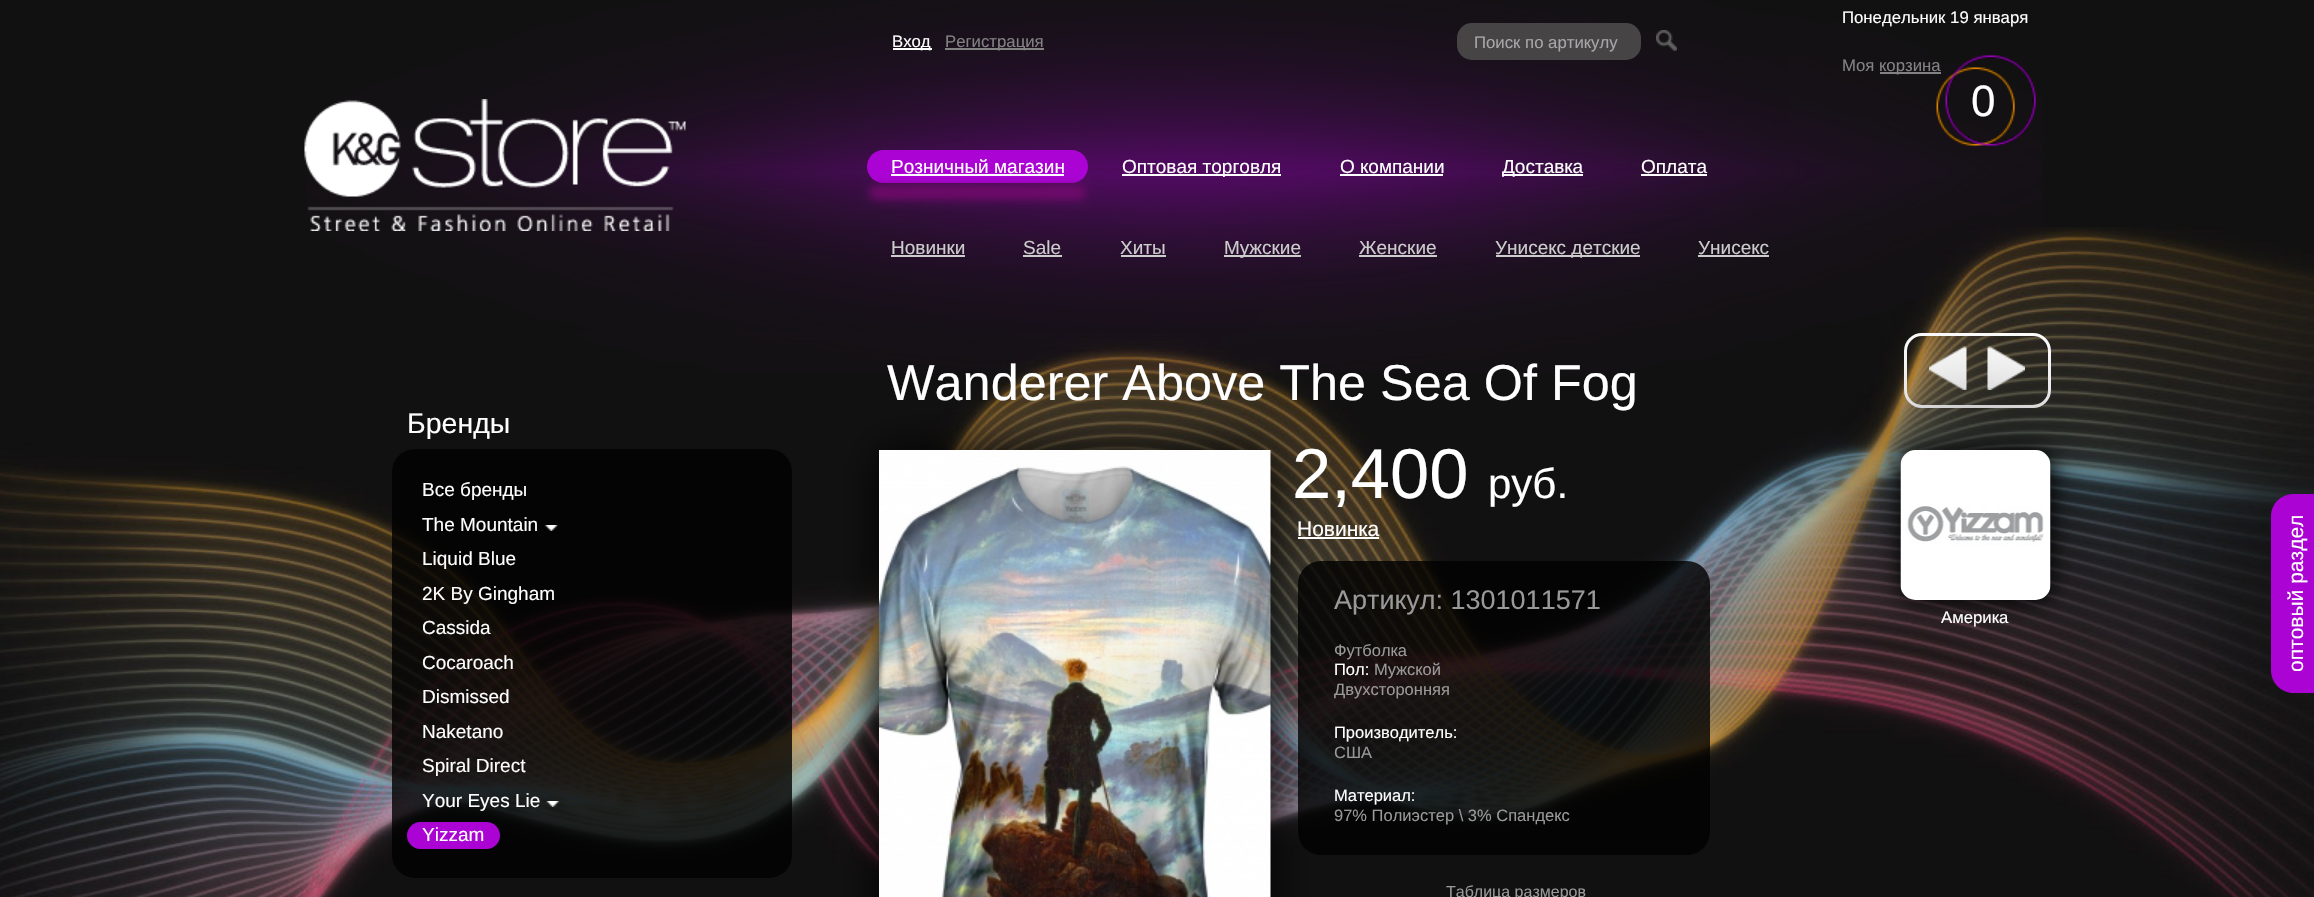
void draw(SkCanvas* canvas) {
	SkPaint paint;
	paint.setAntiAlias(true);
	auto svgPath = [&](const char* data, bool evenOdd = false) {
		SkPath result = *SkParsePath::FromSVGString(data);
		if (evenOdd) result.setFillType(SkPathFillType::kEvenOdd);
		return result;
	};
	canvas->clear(0xff111111);
	canvas->drawImageRect(SkImages::DeferredFromEncodedData(SkData::MakeFromFileName("img1.png")), SkRect::MakeXYWH(0, 227, 2314, 670), SkSamplingOptions());
	canvas->drawImageRect(SkImages::DeferredFromEncodedData(SkData::MakeFromFileName("img2.png")), SkRect::MakeXYWH(307, 0, 1736, 373), SkSamplingOptions());
	canvas->drawImageRect(SkImages::DeferredFromEncodedData(SkData::MakeFromFileName("img3.png")), SkRect::MakeXYWH(304, 99, 382, 132), SkSamplingOptions());
	paint.setColor(0xffffffff);
	canvas->drawRect(SkRect::MakeXYWH(893, 48, 39, 2), paint);
	SkFont f1(fontMgr->matchFamilyStyle("Liberation Sans", SkFontStyle::Normal()), 16.75);
	f1.setSubpixel(true);
	canvas->drawString("Вход", 892, 47, f1, paint);
	paint.setColor(0xff838283);
	canvas->drawRect(SkRect::MakeXYWH(945, 48, 99, 2), paint);
	canvas->drawString("Регистрация", 945, 47, f1, paint);
	paint.setColor(0xff474446);
	canvas->drawRoundRect(SkRect::MakeXYWH(1457, 23, 184, 37), 15, 15, paint);
	paint.setColor(0xffa8a6a8);
	canvas->drawString("Поиск по артикулу", 1474, 48, f1, paint);
	canvas->drawImageRect(SkImages::DeferredFromEncodedData(SkData::MakeFromFileName("img4.png")), SkRect::MakeXYWH(1656, 30, 21, 21), SkSamplingOptions());
	paint.setColor(0xffffffff);
	canvas->drawString("Понедельник 19 января", 1842, 23, f1, paint);
	paint.setColor(0xff838283);
	canvas->drawString("Моя", 1842, 71, f1, paint);
	canvas->drawImageRect(SkImages::DeferredFromEncodedData(SkData::MakeFromFileName("img5.png")), SkRect::MakeXYWH(1936, 55, 100, 91), SkSamplingOptions());
	canvas->drawRect(SkRect::MakeXYWH(1880, 72, 61, 2), paint);
	canvas->drawString("корзина", 1879, 71, f1, paint);
	SkFont f2(fontMgr->matchFamilyStyle("Liberation Sans", SkFontStyle::Normal()), 44);
	f2.setSubpixel(true);
	paint.setColor(0xffffffff);
	canvas->drawString("0", 1971, 116, f2, paint);
	paint.setColor(0xffaa03d4);
	canvas->drawRoundRect(SkRect::MakeXYWH(867, 150, 221, 33), 16.5, 16.5, paint);
	SkFont f3(fontMgr->matchFamilyStyle("Liberation Sans", SkFontStyle::Normal()), 19);
	f3.setSubpixel(true);
	paint.setColor(0xffffffff);
	canvas->drawString("Розничный магазин", 891, 173, f3, paint);
	canvas->drawRect(SkRect::MakeXYWH(891, 174, 173, 2), paint);
	paint.setColor(0xcc780970);
	paint.setMaskFilter(SkMaskFilter::MakeBlur(kNormal_SkBlurStyle, 4.5));
	canvas->drawRoundRect(SkRect::MakeXYWH(869, 185, 217, 15), 15, 15, paint);
	paint.setMaskFilter(nullptr);
	paint.setColor(0xffffffff);
	canvas->drawRect(SkRect::MakeXYWH(1122, 174, 159, 2), paint);
	canvas->drawString("Оптовая торговля", 1122, 173, f3, paint);
	canvas->drawString("О компании", 1340, 173, f3, paint);
	canvas->drawRect(SkRect::MakeXYWH(1340, 174, 103, 2), paint);
	canvas->drawRect(SkRect::MakeXYWH(1502, 174, 81, 2), paint);
	canvas->drawString("Доставка", 1502, 173, f3, paint);
	canvas->drawString("Оплата", 1641, 173, f3, paint);
	canvas->drawRect(SkRect::MakeXYWH(1641, 174, 66, 2), paint);
	paint.setColor(0xffcccccc);
	canvas->drawString("Новинки", 891, 254, f3, paint);
	canvas->drawRect(SkRect::MakeXYWH(891, 255, 74, 2), paint);
	canvas->drawString("Sale", 1023, 254, f3, paint);
	canvas->drawRect(SkRect::MakeXYWH(1023, 255, 39, 2), paint);
	canvas->drawString("Хиты", 1120, 254, f3, paint);
	canvas->drawRect(SkRect::MakeXYWH(1121, 255, 45, 2), paint);
	canvas->drawRect(SkRect::MakeXYWH(1224, 255, 77, 2), paint);
	canvas->drawString("Мужские", 1224, 254, f3, paint);
	canvas->drawString("Женские", 1359, 254, f3, paint);
	canvas->drawRect(SkRect::MakeXYWH(1359, 255, 78, 2), paint);
	canvas->drawRect(SkRect::MakeXYWH(1496, 255, 144, 2), paint);
	canvas->drawString("Унисекс детские", 1495, 254, f3, paint);
	canvas->drawString("Унисекс", 1698, 254, f3, paint);
	canvas->drawRect(SkRect::MakeXYWH(1698, 255, 71, 2), paint);
	SkFont f4(fontMgr->matchFamilyStyle("Liberation Sans", SkFontStyle::Normal()), 50.4);
	f4.setSubpixel(true);
	paint.setColor(0xffffffff);
	canvas->drawString("Wanderer Above The Sea Of Fog", 887, 400, f4, paint);
	paint.setStroke(true);
	paint.setStrokeWidth(3);
	canvas->drawRoundRect(SkRect::MakeXYWH(1905.5, 334.5, 144, 72), 16.5, 16.5, paint);
	canvas->drawImageRect(SkImages::DeferredFromEncodedData(SkData::MakeFromFileName("img6.png")), SkRect::MakeXYWH(1929, 346, 38, 44), SkSamplingOptions());
	canvas->drawImageRect(SkImages::DeferredFromEncodedData(SkData::MakeFromFileName("img7.png")), SkRect::MakeXYWH(1987, 346, 38, 44), SkSamplingOptions());
	SkFont f5(fontMgr->matchFamilyStyle("Liberation Sans", SkFontStyle::Normal()), 28.5);
	f5.setSubpixel(true);
	paint.setStroke(false);
	canvas->drawString("Бренды", 407, 433, f5, paint);
	paint.setColor(0xcc000000);
	canvas->drawRoundRect(SkRect::MakeXYWH(392, 449, 400, 429), 23, 23, paint);
	paint.setColor(0xffffffff);
	canvas->drawString("Все бренды", 422, 496, f3, paint);
	canvas->drawImageRect(SkImages::DeferredFromEncodedData(SkData::MakeFromFileName("img8.png")), SkRect::MakeXYWH(544, 525, 14, 6), SkSamplingOptions());
	canvas->drawString("The Mountain", 422, 531, f3, paint);
	canvas->drawString("Liquid Blue", 422, 565, f3, paint);
	canvas->drawString("2K By Gingham", 422, 600, f3, paint);
	canvas->drawString("Cassida", 422, 634, f3, paint);
	canvas->drawString("Cocaroach", 422, 669, f3, paint);
	canvas->drawString("Dismissed", 422, 703, f3, paint);
	canvas->drawString("Naketano", 422, 738, f3, paint);
	canvas->drawString("Spiral Direct", 422, 772, f3, paint);
	canvas->drawImageRect(SkImages::DeferredFromEncodedData(SkData::MakeFromFileName("img9.png")), SkRect::MakeXYWH(546, 801, 14, 6), SkSamplingOptions());
	canvas->drawString("Your Eyes Lie", 422, 807, f3, paint);
	paint.setColor(0xffaa03d4);
	canvas->drawRoundRect(SkRect::MakeXYWH(407, 822, 93, 27), 13.5, 13.5, paint);
	paint.setColor(0xffffffff);
	canvas->drawString("Yizzam", 422, 841, f3, paint);
	paint.setColor(0xff000000);
	paint.setMaskFilter(SkMaskFilter::MakeBlur(kNormal_SkBlurStyle, 22.5));
	canvas->drawRect(SkRect::MakeXYWH(879, 450, 392, 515), paint);
	paint.setMaskFilter(nullptr);
	canvas->drawImageRect(SkImages::DeferredFromEncodedData(SkData::MakeFromFileName("img10.png")), SkRect::MakeXYWH(879, 450, 392, 447), SkSamplingOptions());
	SkFont f6(fontMgr->matchFamilyStyle("Liberation Sans", SkFontStyle::Normal()), 70.5);
	f6.setSubpixel(true);
	paint.setColor(0xffffffff);
	canvas->drawString("2,400", 1292, 498, f6, paint);
	SkFont f7(fontMgr->matchFamilyStyle("Liberation Sans", SkFontStyle::Normal()), 42);
	f7.setSubpixel(true);
	canvas->drawString("руб.", 1488, 498, f7, paint);
	SkFont f8(fontMgr->matchFamilyStyle("Liberation Sans", SkFontStyle::Normal()), 21);
	f8.setSubpixel(true);
	canvas->drawString("Новинка", 1297, 536, f8, paint);
	canvas->drawRect(SkRect::MakeXYWH(1298, 537, 81, 2), paint);
	paint.setColor(0xcc000000);
	canvas->drawRoundRect(SkRect::MakeXYWH(1298, 561, 412, 294), 23, 23, paint);
	SkFont f9(fontMgr->matchFamilyStyle("Liberation Sans", SkFontStyle::Normal()), 27);
	f9.setSubpixel(true);
	paint.setColor(0xff999999);
	canvas->drawString("Артикул: 1301011571", 1334, 609, f9, paint);
	SkFont f10(fontMgr->matchFamilyStyle("Liberation Sans", SkFontStyle::Normal()), 16.5);
	f10.setSubpixel(true);
	canvas->drawString("Футболка", 1334, 656, f10, paint);
	paint.setColor(0xffffffff);
	canvas->drawString("Пол:", 1334, 675, f10, paint);
	paint.setColor(0xff999999);
	canvas->drawString("Мужской", 1374, 675, f10, paint);
	canvas->drawString("Двухсторонняя", 1334, 695, f10, paint);
	paint.setColor(0xffffffff);
	canvas->drawString("Производитель:", 1334, 738, f10, paint);
	paint.setColor(0xff999999);
	canvas->drawString("США", 1334, 758, f10, paint);
	paint.setColor(0xffffffff);
	canvas->drawString("Материал:", 1334, 801, f10, paint);
	paint.setColor(0xff999999);
	canvas->drawString("97% Полиэстер \\ 3% Спандекс", 1334, 821, f10, paint);
	SkFont f11(fontMgr->matchFamilyStyle("Liberation Sans", SkFontStyle::Normal()), 16);
	f11.setSubpixel(true);
	canvas->drawString("Таблица размеров", 1446, 897, f11, paint);
	paint.setColor(0xff000000);
	paint.setMaskFilter(SkMaskFilter::MakeBlur(kNormal_SkBlurStyle, 67.5));
	canvas->drawRoundRect(SkRect::MakeXYWH(1901, 450, 150, 150), 23, 23, paint);
	paint.setMaskFilter(nullptr);
	paint.setMaskFilter(SkMaskFilter::MakeBlur(kNormal_SkBlurStyle, 11));
	canvas->drawRoundRect(SkRect::MakeXYWH(1901, 450, 150, 150), 15, 15, paint);
	paint.setMaskFilter(nullptr);
	canvas->drawImageRect(SkImages::DeferredFromEncodedData(SkData::MakeFromFileName("img11.png")), SkRect::MakeXYWH(1900, 450, 151, 150), SkSamplingOptions());
	paint.setColor(0xffffffff);
	canvas->drawString("Америка", 1941, 623, f1, paint);
	paint.setColor(0xffaa03d4);
	canvas->drawPath(svgPath("M2271 670V516C2271 504 2281 494 2294 494H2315V693H2294C2281 693 2271 683 2271 670Z"), paint);
	paint.setColor(0xffffffff);
	canvas->save();
	canvas->rotate(-90, 2303, 672);
	canvas->drawString("оптовый раздел", 2303, 672, f8, paint);
	canvas->restore();
}
